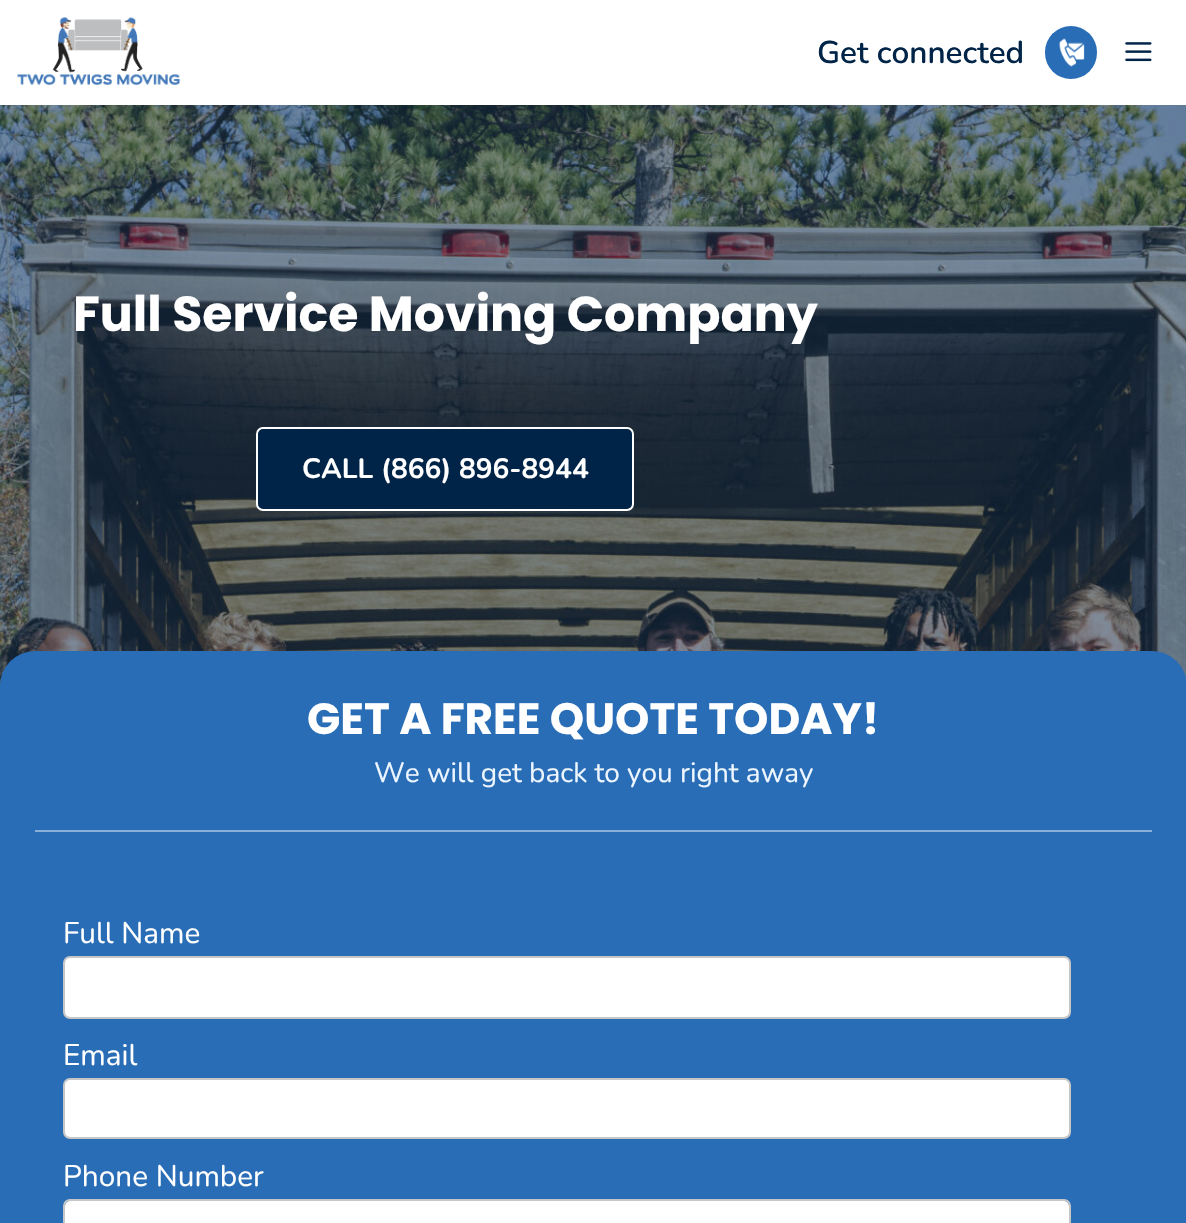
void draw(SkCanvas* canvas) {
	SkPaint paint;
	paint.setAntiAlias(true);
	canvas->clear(0xffffffff);
	canvas->drawImageRect(SkImages::DeferredFromEncodedData(SkData::MakeFromFileName("img1.png")), SkRect::MakeXYWH(17, 17, 164, 68), SkSamplingOptions());
	paint.setColor(0xff286db6);
	canvas->drawRoundRect(SkRect::MakeXYWH(1045, 26, 52, 53), 26, 26, paint);
	SkFont f1(fontMgr->matchFamilyStyle("Nunito", SkFontStyle(600, SkFontStyle::kNormal_Width, SkFontStyle::kUpright_Slant)), 31.5);
	f1.setSubpixel(true);
	paint.setColor(0xff002447);
	canvas->drawString("Get connected", 817, 63, f1, paint);
	canvas->drawImageRect(SkImages::DeferredFromEncodedData(SkData::MakeFromFileName("img2.png")), SkRect::MakeXYWH(1059, 38, 26, 29), SkSamplingOptions());
	canvas->drawImageRect(SkImages::DeferredFromEncodedData(SkData::MakeFromFileName("img3.png")), SkRect::MakeXYWH(1125, 42, 27, 20), SkSamplingOptions());
	canvas->drawRect(SkRect::MakeXYWH(0, 105, 1186, 581), paint);
	canvas->drawImageRect(SkImages::DeferredFromEncodedData(SkData::MakeFromFileName("img4.png")), SkRect::MakeXYWH(0, 105, 1186, 581), SkSamplingOptions());
	SkFont f2(fontMgr->matchFamilyStyle("Poppins", SkFontStyle::Bold()), 49);
	f2.setSubpixel(true);
	paint.setColor(0xffffffff);
	canvas->drawString("Full Service Moving Company", 73, 331, f2, paint);
	paint.setColor(0xff002448);
	canvas->drawRoundRect(SkRect::MakeXYWH(257, 428, 376, 82), 6, 6, paint);
	paint.setStroke(true);
	paint.setStrokeWidth(2);
	paint.setColor(0xffffffff);
	canvas->drawRoundRect(SkRect::MakeXYWH(257, 428, 376, 82), 6, 6, paint);
	SkFont f3(fontMgr->matchFamilyStyle("Nunito", SkFontStyle::Bold()), 28);
	f3.setSubpixel(true);
	paint.setStroke(false);
	canvas->drawString("CALL (866) 896-8944", 302, 478, f3, paint);
	paint.setColor(0xff286db6);
	canvas->drawRoundRect(SkRect::MakeXYWH(0, 651, 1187, 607), 35, 35, paint);
	SkFont f4(fontMgr->matchFamilyStyle("Poppins", SkFontStyle::Bold()), 43.75);
	f4.setSubpixel(true);
	paint.setColor(0xffffffff);
	canvas->drawString("GET A FREE QUOTE TODAY!", 307, 734, f4, paint);
	paint.setColor(0xff8bb0d8);
	canvas->drawRect(SkRect::MakeXYWH(35, 830, 1117, 2), paint);
	SkFont f5(fontMgr->matchFamilyStyle("Nunito", SkFontStyle::Normal()), 28);
	f5.setSubpixel(true);
	paint.setColor(0xffedf5ff);
	canvas->drawString("We will get back to you right away", 374, 782, f5, paint);
	SkFont f6(fontMgr->matchFamilyStyle("Nunito", SkFontStyle::Normal()), 29.75);
	f6.setSubpixel(true);
	paint.setColor(0xffffffff);
	canvas->drawString("Full Name", 63, 943, f6, paint);
	canvas->drawRoundRect(SkRect::MakeXYWH(64, 957, 1006, 61), 6, 6, paint);
	paint.setStroke(true);
	paint.setColor(0xffc6c6c6);
	canvas->drawRoundRect(SkRect::MakeXYWH(64, 957, 1006, 61), 6, 6, paint);
	paint.setStroke(false);
	paint.setColor(0xffffffff);
	canvas->drawString("Email", 63, 1065, f6, paint);
	canvas->drawRoundRect(SkRect::MakeXYWH(64, 1079, 1006, 59), 6, 6, paint);
	paint.setStroke(true);
	paint.setColor(0xffc6c6c6);
	canvas->drawRoundRect(SkRect::MakeXYWH(64, 1079, 1006, 59), 6, 6, paint);
	paint.setStroke(false);
	paint.setColor(0xffffffff);
	canvas->drawString("Phone Number", 63, 1186, f6, paint);
	canvas->drawRoundRect(SkRect::MakeXYWH(65, 1201, 1004, 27), 5, 5, paint);
	paint.setStroke(true);
	paint.setColor(0xffc6c6c6);
	canvas->drawRoundRect(SkRect::MakeXYWH(64, 1200, 1006, 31), 6, 6, paint);
}
